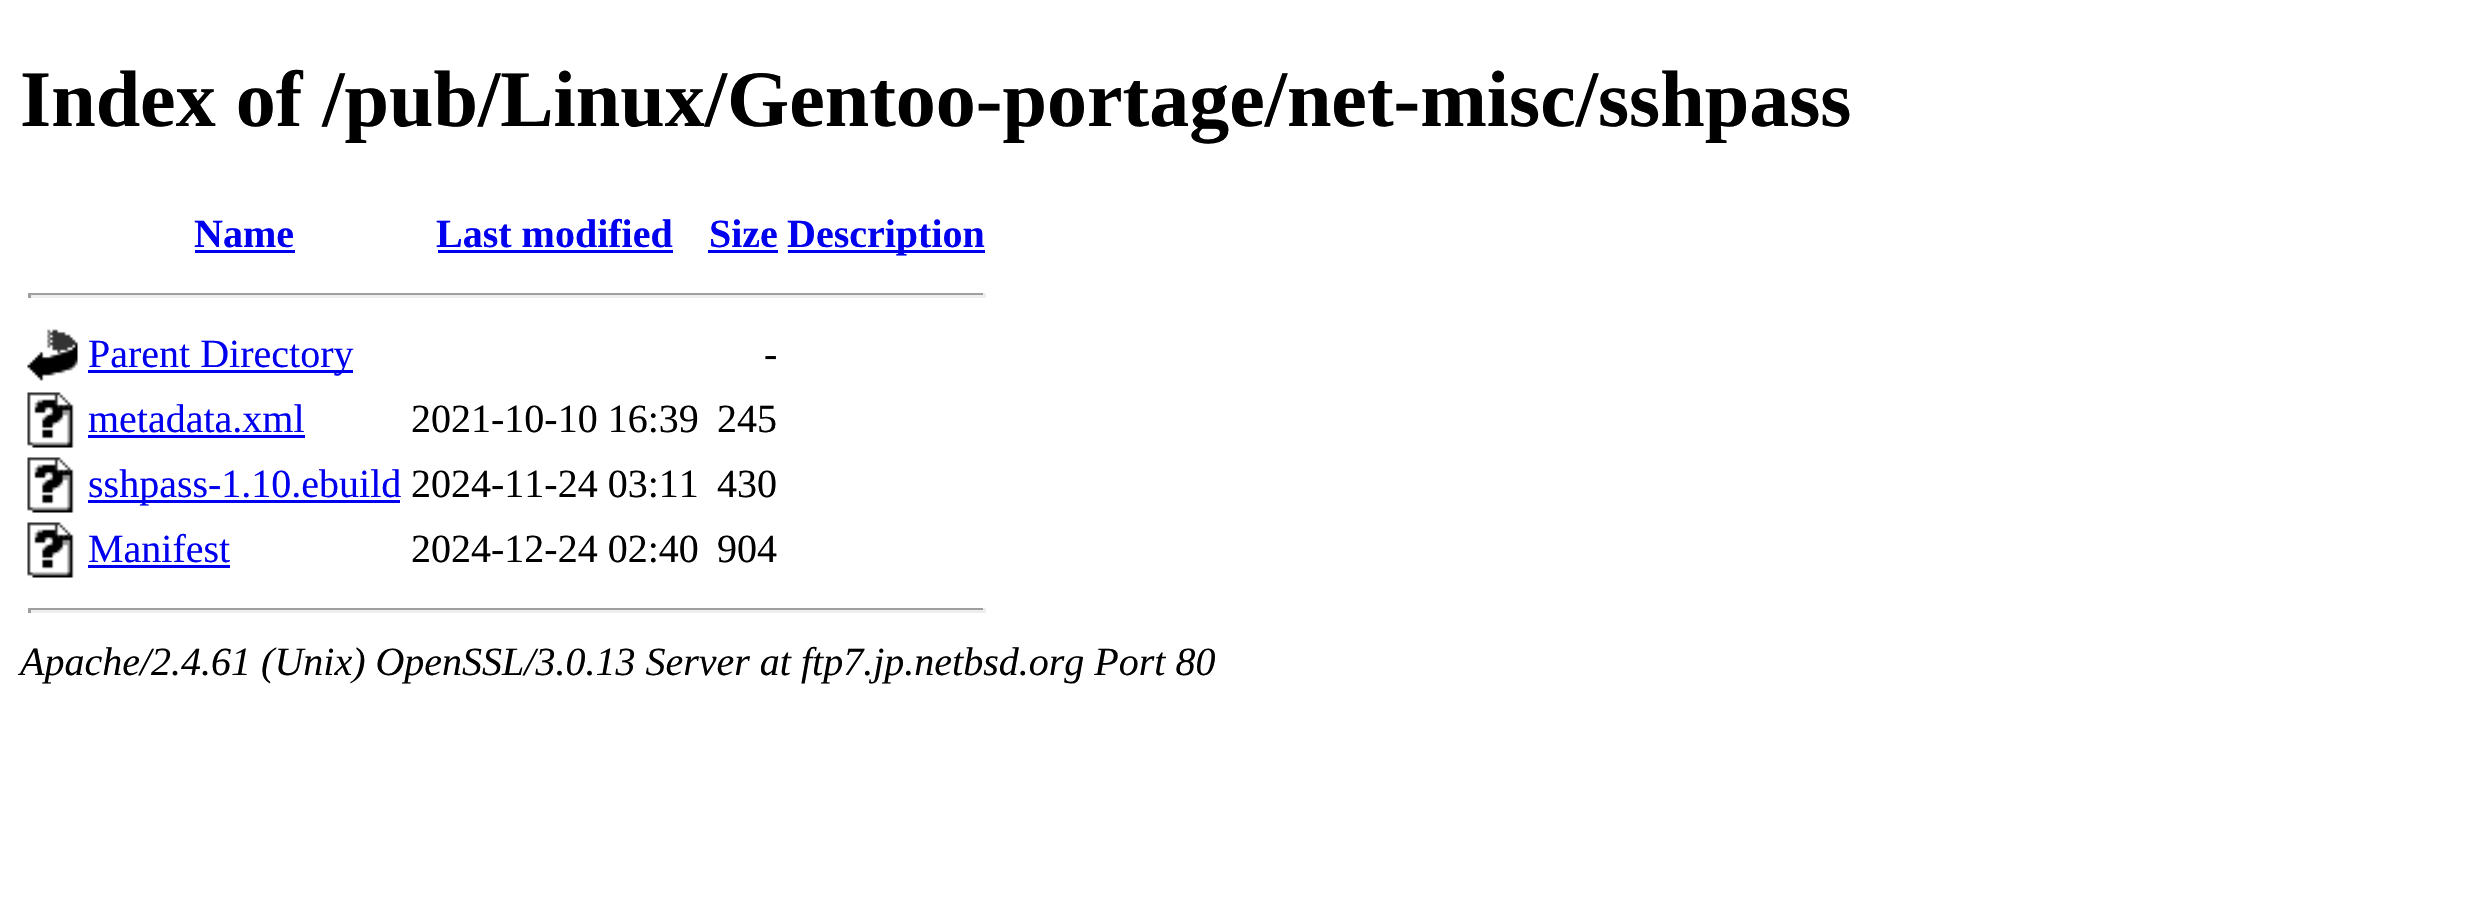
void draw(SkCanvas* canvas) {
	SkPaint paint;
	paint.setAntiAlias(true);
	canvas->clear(0xffffffff);
	SkFont f1(fontMgr->matchFamilyStyle("Liberation Serif", SkFontStyle::Bold()), 80);
	f1.setSubpixel(true);
	paint.setColor(0xff000000);
	canvas->drawString("Index of /pub/Linux/Gentoo-portage/net-misc/sshpass", 20, 126, f1, paint);
	SkFont f2(fontMgr->matchFamilyStyle("Liberation Serif", SkFontStyle::Bold()), 40);
	f2.setSubpixel(true);
	paint.setColor(0xff0000ee);
	canvas->drawString("Name", 194, 247, f2, paint);
	canvas->drawRect(SkRect::MakeXYWH(195, 250, 100, 3), paint);
	canvas->drawString("Last modified", 436, 247, f2, paint);
	canvas->drawRect(SkRect::MakeXYWH(438, 250, 235, 3), paint);
	canvas->drawString("Size", 709, 247, f2, paint);
	canvas->drawRect(SkRect::MakeXYWH(708, 250, 70, 3), paint);
	canvas->drawRect(SkRect::MakeXYWH(788, 250, 197, 3), paint);
	canvas->drawString("Description", 787, 247, f2, paint);
	paint.setColor(0xff9f9f9f);
	canvas->drawRect(SkRect::MakeXYWH(28, 293, 957, 2), paint);
	paint.setColor(0xffeeeeee);
	canvas->drawRect(SkRect::MakeXYWH(983, 293, 3, 5), paint);
	canvas->drawRect(SkRect::MakeXYWH(28, 295, 957, 3), paint);
	paint.setColor(0xff9f9f9f);
	canvas->drawRect(SkRect::MakeXYWH(28, 293, 3, 5), paint);
	canvas->drawImageRect(SkImages::DeferredFromEncodedData(SkData::MakeFromFileName("img1.png")), SkRect::MakeXYWH(27, 329, 51, 52), SkSamplingOptions());
	paint.setColor(0xff0000ee);
	canvas->drawRect(SkRect::MakeXYWH(88, 370, 265, 3), paint);
	SkFont f3(fontMgr->matchFamilyStyle("Liberation Serif", SkFontStyle::Normal()), 40);
	f3.setSubpixel(true);
	canvas->drawString("Parent Directory", 88, 367, f3, paint);
	paint.setColor(0xff000000);
	canvas->drawString("-", 764, 367, f3, paint);
	canvas->drawImageRect(SkImages::DeferredFromEncodedData(SkData::MakeFromFileName("img2.png")), SkRect::MakeXYWH(27, 392, 47, 56), SkSamplingOptions());
	paint.setColor(0xff0000ee);
	canvas->drawString("metadata.xml", 88, 432, f3, paint);
	canvas->drawRect(SkRect::MakeXYWH(88, 435, 217, 3), paint);
	paint.setColor(0xff000000);
	canvas->drawString("2021-10-10 16:39", 411, 432, f3, paint);
	canvas->drawString("245", 717, 432, f3, paint);
	canvas->drawImageRect(SkImages::DeferredFromEncodedData(SkData::MakeFromFileName("img2.png")), SkRect::MakeXYWH(27, 457, 47, 56), SkSamplingOptions());
	paint.setColor(0xff0000ee);
	canvas->drawRect(SkRect::MakeXYWH(88, 500, 312, 3), paint);
	canvas->drawString("sshpass-1.10.ebuild", 88, 497, f3, paint);
	paint.setColor(0xff000000);
	canvas->drawString("2024-11-24 03:11", 411, 497, f3, paint);
	canvas->drawString("430", 717, 497, f3, paint);
	canvas->drawImageRect(SkImages::DeferredFromEncodedData(SkData::MakeFromFileName("img2.png")), SkRect::MakeXYWH(27, 522, 47, 56), SkSamplingOptions());
	paint.setColor(0xff0000ee);
	canvas->drawString("Manifest", 88, 562, f3, paint);
	canvas->drawRect(SkRect::MakeXYWH(88, 565, 142, 3), paint);
	paint.setColor(0xff000000);
	canvas->drawString("2024-12-24 02:40", 411, 562, f3, paint);
	canvas->drawString("904", 717, 562, f3, paint);
	paint.setColor(0xff9f9f9f);
	canvas->drawRect(SkRect::MakeXYWH(28, 608, 957, 2), paint);
	paint.setColor(0xffeeeeee);
	canvas->drawRect(SkRect::MakeXYWH(983, 608, 3, 5), paint);
	canvas->drawRect(SkRect::MakeXYWH(28, 610, 957, 3), paint);
	paint.setColor(0xff9f9f9f);
	canvas->drawRect(SkRect::MakeXYWH(28, 608, 3, 5), paint);
	SkFont f4(fontMgr->matchFamilyStyle("Liberation Serif", SkFontStyle::Italic()), 40);
	f4.setSubpixel(true);
	paint.setColor(0xff000000);
	canvas->drawString("Apache/2.4.61 (Unix) OpenSSL/3.0.13 Server at ftp7.jp.netbsd.org Port 80", 20, 675, f4, paint);
}
